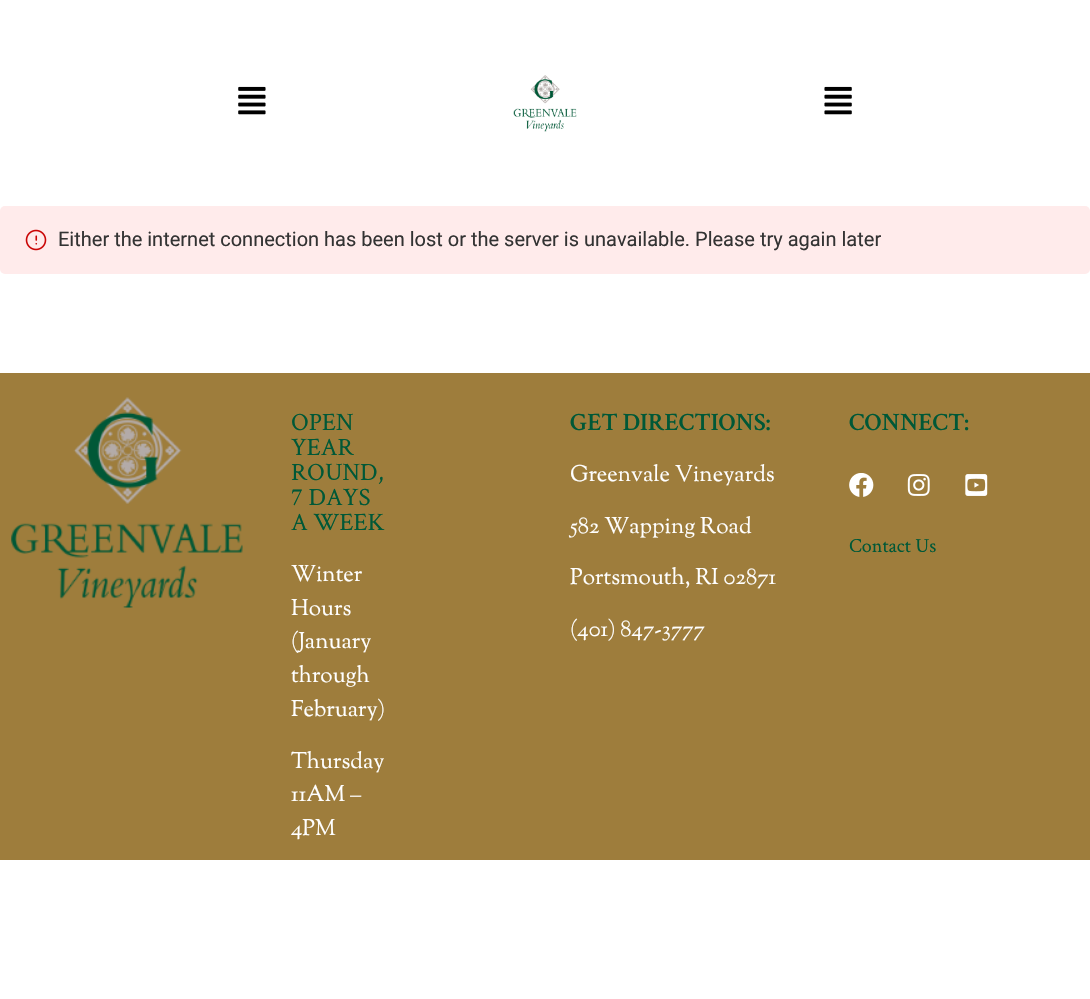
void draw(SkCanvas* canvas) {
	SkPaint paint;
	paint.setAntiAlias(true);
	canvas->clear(0xffffffff);
	canvas->drawImageRect(SkImages::DeferredFromEncodedData(SkData::MakeFromFileName("img1.png")), SkRect::MakeXYWH(238, 86, 28, 29), SkSamplingOptions());
	canvas->drawImageRect(SkImages::DeferredFromEncodedData(SkData::MakeFromFileName("img2.png")), SkRect::MakeXYWH(513, 75, 64, 57), SkSamplingOptions());
	canvas->drawImageRect(SkImages::DeferredFromEncodedData(SkData::MakeFromFileName("img3.png")), SkRect::MakeXYWH(824, 86, 28, 29), SkSamplingOptions());
	paint.setColor(0xffffebeb);
	canvas->drawRoundRect(SkRect::MakeXYWH(0, 206, 1090, 68), 5, 5, paint);
	canvas->drawImageRect(SkImages::DeferredFromEncodedData(SkData::MakeFromFileName("img4.png")), SkRect::MakeXYWH(25, 229, 22, 22), SkSamplingOptions());
	SkFont f1(fontMgr->matchFamilyStyle("Roboto", SkFontStyle::Normal()), 20);
	f1.setSubpixel(true);
	paint.setColor(0xff333333);
	canvas->drawString("Either the internet connection has been lost or the server is unavailable. Please try again later", 58, 246, f1, paint);
	paint.setColor(0xff9e7d3c);
	canvas->drawRect(SkRect::MakeXYWH(0, 373, 1090, 487), paint);
	canvas->drawImageRect(SkImages::DeferredFromEncodedData(SkData::MakeFromFileName("img5.png")), SkRect::MakeXYWH(11, 397, 232, 211), SkSamplingOptions());
	SkFont f2(fontMgr->matchFamilyStyle("Crimson Text", SkFontStyle::Normal()), 25);
	f2.setSubpixel(true);
	paint.setColor(0xff005837);
	canvas->drawString("OPEN", 291, 430, f2, paint);
	canvas->drawString("YEAR", 291, 455, f2, paint);
	canvas->drawString("ROUND,", 291, 480, f2, paint);
	canvas->drawString("7 DAYS", 291, 505, f2, paint);
	canvas->drawString("A WEEK", 291, 530, f2, paint);
	SkFont f3(fontMgr->matchFamilyStyle("Sorts Mill Goudy", SkFontStyle::Normal()), 22.5);
	f3.setSubpixel(true);
	paint.setColor(0xffffffff);
	canvas->drawString("Winter", 291, 581, f3, paint);
	canvas->drawString("Hours", 291, 615, f3, paint);
	canvas->drawString("(January", 291, 648, f3, paint);
	canvas->drawString("through", 291, 682, f3, paint);
	canvas->drawString("February)", 291, 716, f3, paint);
	canvas->drawString("Thursday", 291, 768, f3, paint);
	canvas->drawString("11AM –", 291, 801, f3, paint);
	canvas->drawString("4PM", 291, 835, f3, paint);
	SkFont f4(fontMgr->matchFamilyStyle("Crimson Text", SkFontStyle(600, SkFontStyle::kNormal_Width, SkFontStyle::kUpright_Slant)), 25);
	f4.setSubpixel(true);
	paint.setColor(0xff005837);
	canvas->drawString("GET DIRECTIONS:", 570, 430, f4, paint);
	paint.setColor(0xffffffff);
	canvas->drawString("Greenvale Vineyards", 570, 481, f3, paint);
	canvas->drawString("582 Wapping Road", 570, 533, f3, paint);
	canvas->drawString("Portsmouth, RI 02871", 570, 584, f3, paint);
	canvas->drawString("(401) 847-3777", 570, 636, f3, paint);
	paint.setColor(0xff005837);
	canvas->drawString("CONNECT:", 849, 430, f4, paint);
	canvas->drawImageRect(SkImages::DeferredFromEncodedData(SkData::MakeFromFileName("img6.png")), SkRect::MakeXYWH(849, 473, 25, 24), SkSamplingOptions());
	canvas->drawImageRect(SkImages::DeferredFromEncodedData(SkData::MakeFromFileName("img7.png")), SkRect::MakeXYWH(907, 474, 23, 22), SkSamplingOptions());
	canvas->drawImageRect(SkImages::DeferredFromEncodedData(SkData::MakeFromFileName("img8.png")), SkRect::MakeXYWH(965, 474, 23, 22), SkSamplingOptions());
	SkFont f5(fontMgr->matchFamilyStyle("Crimson Text", SkFontStyle::Normal()), 20);
	f5.setSubpixel(true);
	canvas->drawString("Contact Us", 849, 552, f5, paint);
}
